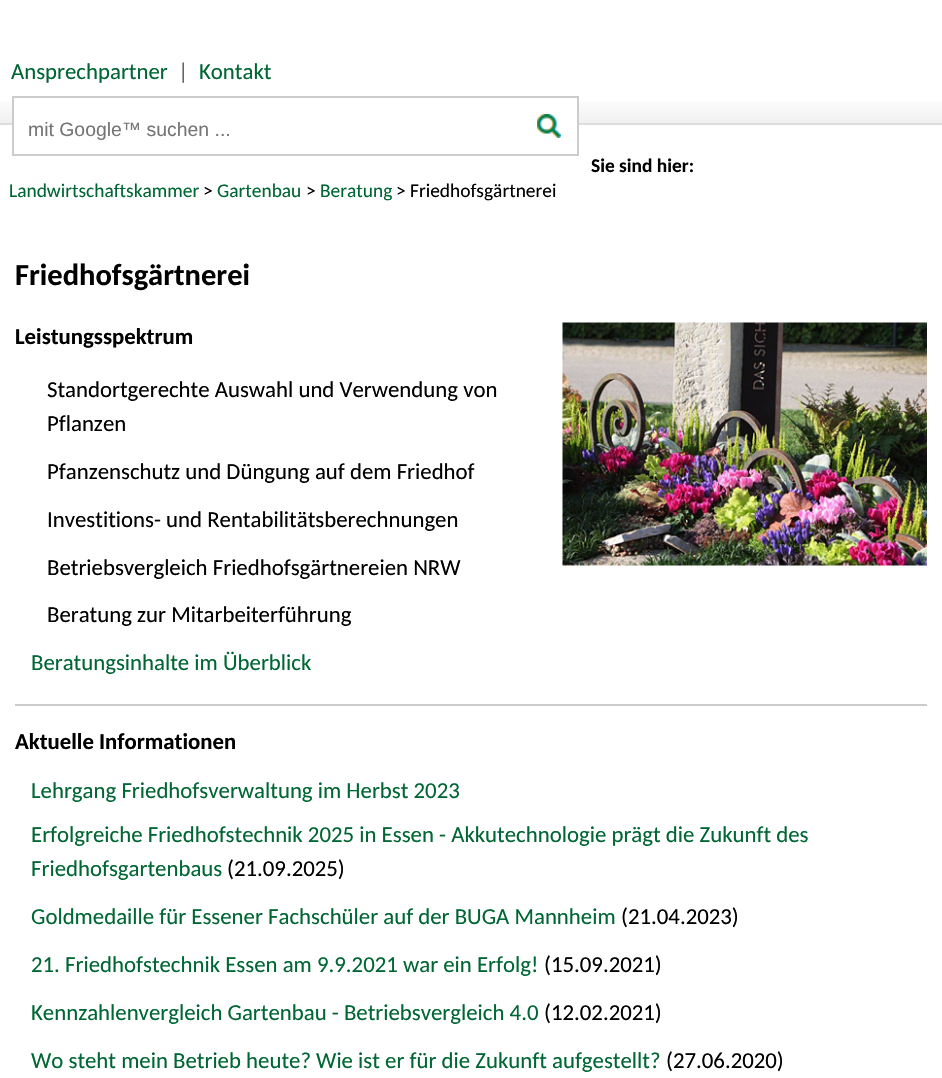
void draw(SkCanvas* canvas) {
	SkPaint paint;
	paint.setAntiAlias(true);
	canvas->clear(0xffffffff);
	SkFont f1(fontMgr->matchFamilyStyle("Carlito", SkFontStyle::Normal()), 22.8);
	f1.setSubpixel(true);
	paint.setColor(0xff006633);
	canvas->drawString("Ansprechpartner", 11, 79, f1, paint);
	paint.setColor(0xff666666);
	canvas->drawString("|", 178, 79, f1, paint);
	paint.setColor(0xff006633);
	canvas->drawString("Kontakt", 199, 79, f1, paint);
	{
		const SkColor colors[] = {0xffffffff, 0xfff0f0f0};
		const float stops[] = {0, 1};
		const SkPoint ends[] = {{471, 96}, {471, 123}};
		paint.setShader(SkGradientShader::MakeLinear(ends, colors, stops, 2, SkTileMode::kClamp));
		paint.setAlpha(255);
	}
	canvas->drawRect(SkRect::MakeXYWH(0, 101, 942, 22), paint);
	paint.setShader(nullptr);
	paint.setColor(0xffdddddd);
	canvas->drawRect(SkRect::MakeXYWH(0, 123, 942, 2), paint);
	paint.setColor(0xffffffff);
	canvas->drawRect(SkRect::MakeXYWH(14, 101, 563, 24), paint);
	paint.setStroke(true);
	paint.setStrokeWidth(2);
	paint.setColor(0xffcccccc);
	canvas->drawRect(SkRect::MakeXYWH(13, 97, 565, 58), paint);
	SkFont f2(fontMgr->matchFamilyStyle("Liberation Sans", SkFontStyle::Normal()), 19.4);
	f2.setSubpixel(true);
	paint.setStroke(false);
	paint.setColor(0xff757575);
	canvas->drawString("mit Google™ suchen ...", 28, 136, f2, paint);
	canvas->drawImageRect(SkImages::DeferredFromEncodedData(SkData::MakeFromFileName("img1.png")), SkRect::MakeXYWH(537, 114, 24, 24), SkSamplingOptions());
	SkFont f3(fontMgr->matchFamilyStyle("Carlito", SkFontStyle::Bold()), 19.4);
	f3.setSubpixel(true);
	paint.setColor(0xff000000);
	canvas->drawString("Sie sind hier:", 591, 172, f3, paint);
	SkFont f4(fontMgr->matchFamilyStyle("Carlito", SkFontStyle::Normal()), 19.4);
	f4.setSubpixel(true);
	paint.setColor(0xff006633);
	canvas->drawString("Landwirtschaftskammer", 9, 197, f4, paint);
	paint.setColor(0xff000000);
	canvas->drawString(">", 203, 197, f4, paint);
	paint.setColor(0xff006633);
	canvas->drawString("Gartenbau", 217, 197, f4, paint);
	paint.setColor(0xff000000);
	canvas->drawString(">", 306, 197, f4, paint);
	paint.setColor(0xff006633);
	canvas->drawString("Beratung", 320, 197, f4, paint);
	paint.setColor(0xff000000);
	canvas->drawString("> Friedhofsgärtnerei", 396, 197, f4, paint);
	SkFont f5(fontMgr->matchFamilyStyle("Carlito", SkFontStyle::Bold()), 30.5);
	f5.setSubpixel(true);
	canvas->drawString("Friedhofsgärtnerei", 15, 285, f5, paint);
	SkFont f6(fontMgr->matchFamilyStyle("Carlito", SkFontStyle::Bold()), 22.75);
	f6.setSubpixel(true);
	canvas->drawString("Leistungsspektrum", 15, 344, f6, paint);
	canvas->drawImageRect(SkImages::DeferredFromEncodedData(SkData::MakeFromFileName("img2.png")), SkRect::MakeXYWH(562, 322, 365, 244), SkSamplingOptions());
	canvas->drawString("Standortgerechte Auswahl und Verwendung von", 47, 397, f1, paint);
	canvas->drawString("Pflanzen", 47, 431, f1, paint);
	canvas->drawString("Pfanzenschutz und Düngung auf dem Friedhof", 47, 479, f1, paint);
	canvas->drawString("Investitions- und Rentabilitätsberechnungen", 47, 527, f1, paint);
	canvas->drawString("Betriebsvergleich Friedhofsgärtnereien NRW", 47, 575, f1, paint);
	canvas->drawString("Beratung zur Mitarbeiterführung", 47, 622, f1, paint);
	paint.setColor(0xff006633);
	canvas->drawString("Beratungsinhalte im Überblick", 31, 670, f1, paint);
	paint.setColor(0xffcccccc);
	canvas->drawRect(SkRect::MakeXYWH(15, 704, 912, 2), paint);
	paint.setColor(0xff000000);
	canvas->drawString("Aktuelle Informationen", 15, 749, f6, paint);
	paint.setColor(0xff006633);
	canvas->drawString("Lehrgang Friedhofsverwaltung im Herbst 2023", 31, 798, f1, paint);
	canvas->drawString("Erfolgreiche Friedhofstechnik 2025 in Essen - Akkutechnologie prägt die Zukunft des", 31, 842, f1, paint);
	canvas->drawString("Friedhofsgartenbaus", 31, 876, f1, paint);
	paint.setColor(0xff000000);
	canvas->drawString("(21.09.2025)", 227, 876, f1, paint);
	paint.setColor(0xff006633);
	canvas->drawString("Goldmedaille für Essener Fachschüler auf der BUGA Mannheim", 31, 924, f1, paint);
	paint.setColor(0xff000000);
	canvas->drawString("(21.04.2023)", 621, 924, f1, paint);
	paint.setColor(0xff006633);
	canvas->drawString("21. Friedhofstechnik Essen am 9.9.2021 war ein Erfolg!", 31, 972, f1, paint);
	paint.setColor(0xff000000);
	canvas->drawString("(15.09.2021)", 544, 972, f1, paint);
	paint.setColor(0xff006633);
	canvas->drawString("Kennzahlenvergleich Gartenbau - Betriebsvergleich 4.0", 31, 1020, f1, paint);
	paint.setColor(0xff000000);
	canvas->drawString("(12.02.2021)", 544, 1020, f1, paint);
	paint.setColor(0xff006633);
	canvas->drawString("Wo steht mein Betrieb heute? Wie ist er für die Zukunft aufgestellt?", 31, 1068, f1, paint);
	paint.setColor(0xff000000);
	canvas->drawString("(27.06.2020)", 666, 1068, f1, paint);
}
